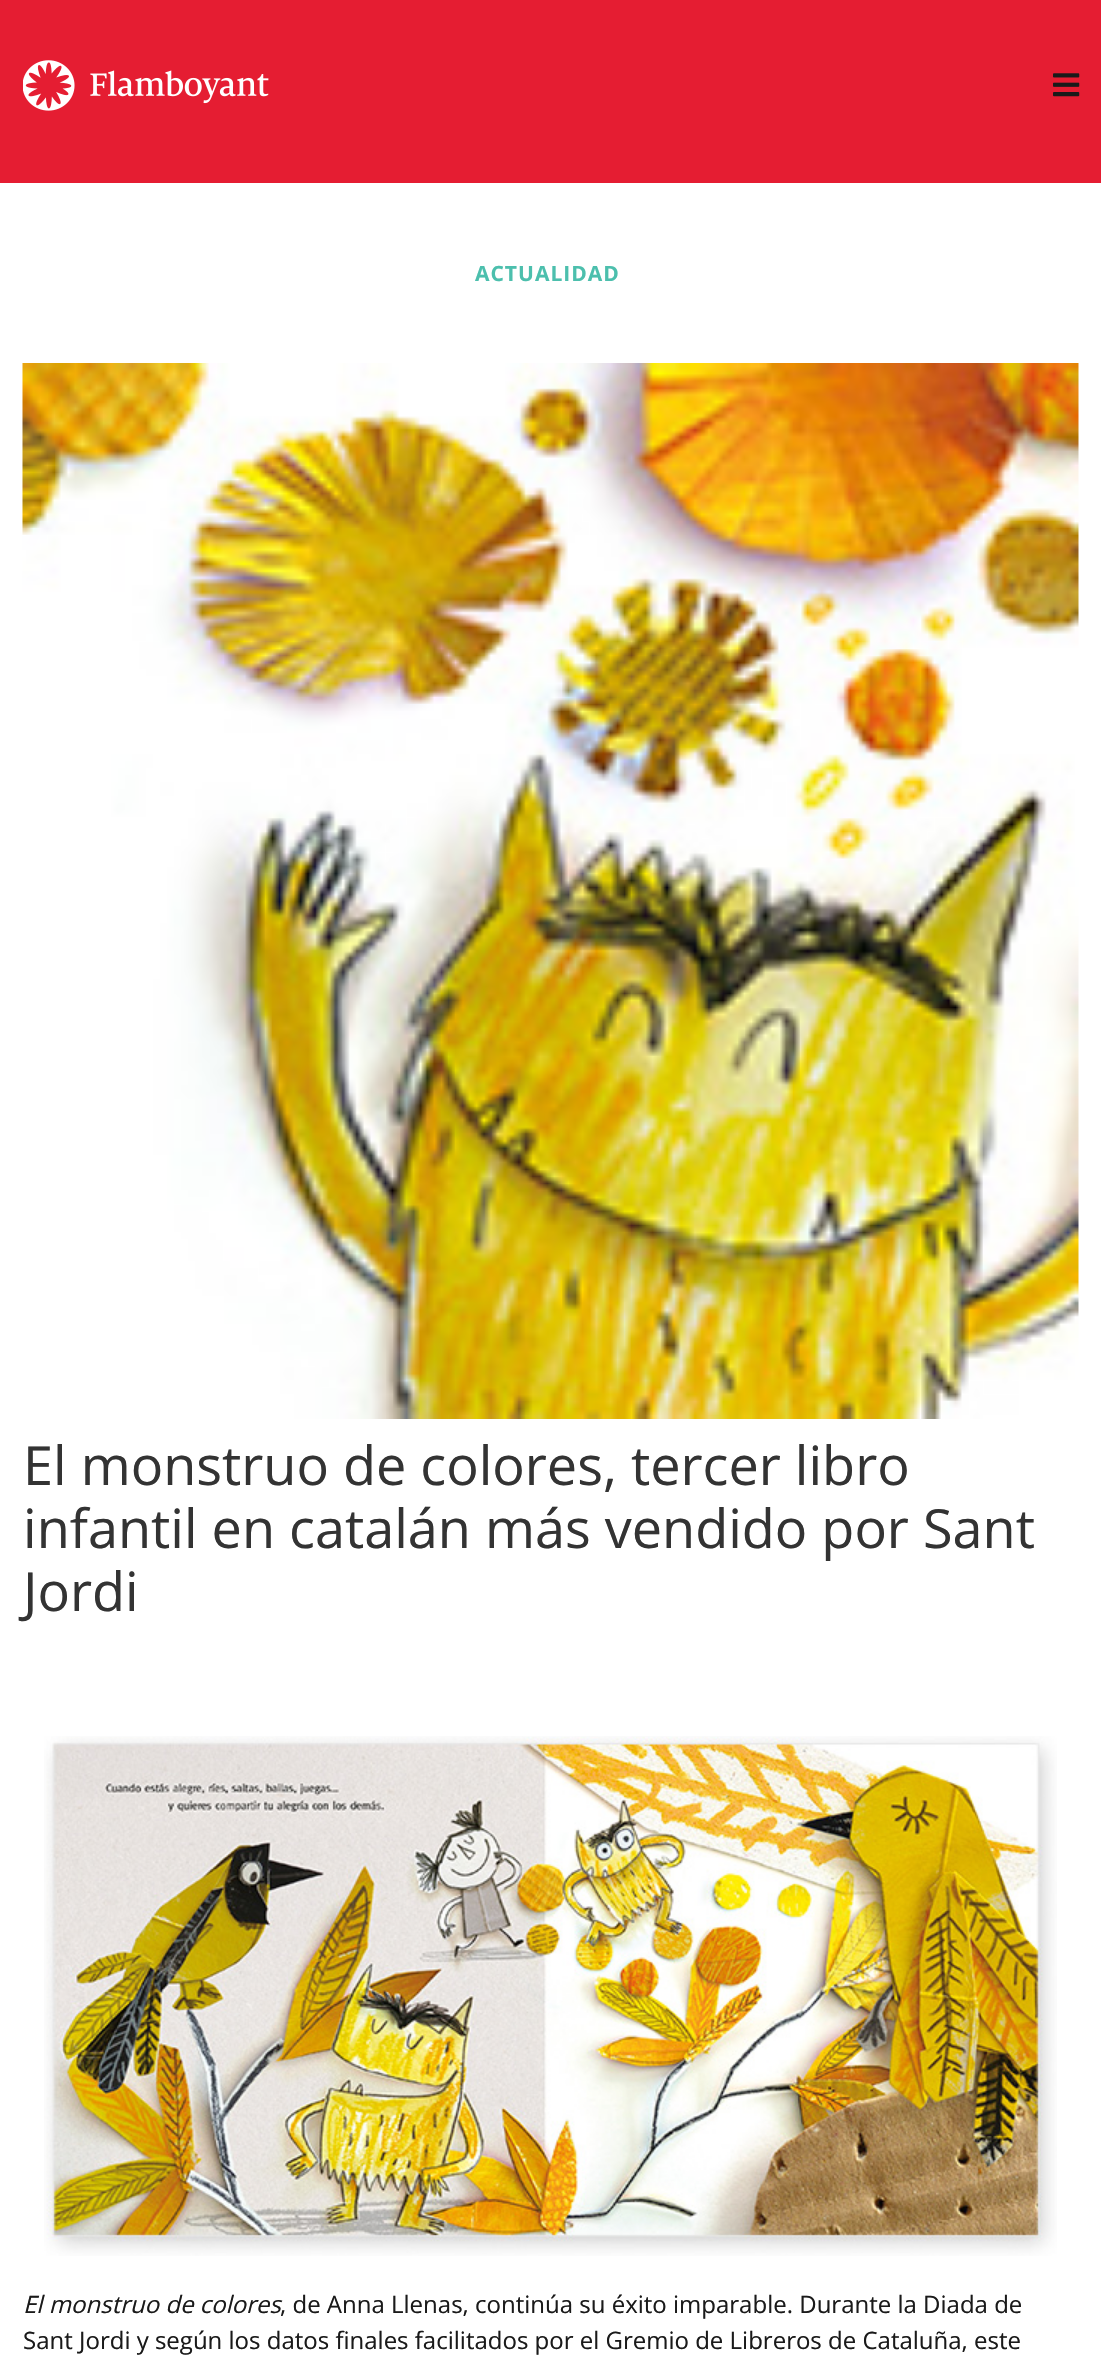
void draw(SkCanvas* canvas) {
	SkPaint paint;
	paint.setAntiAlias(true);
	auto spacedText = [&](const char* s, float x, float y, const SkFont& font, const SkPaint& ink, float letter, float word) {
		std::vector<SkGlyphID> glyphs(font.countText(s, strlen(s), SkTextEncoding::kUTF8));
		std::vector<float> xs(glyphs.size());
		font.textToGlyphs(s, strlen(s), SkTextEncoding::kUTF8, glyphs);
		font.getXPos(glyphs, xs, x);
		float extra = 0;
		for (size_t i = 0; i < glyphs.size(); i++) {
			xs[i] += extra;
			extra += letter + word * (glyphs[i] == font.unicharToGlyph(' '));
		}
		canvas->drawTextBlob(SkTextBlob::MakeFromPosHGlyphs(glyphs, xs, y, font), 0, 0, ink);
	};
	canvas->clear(0xffffffff);
	paint.setColor(0xffe51d32);
	canvas->drawRect(SkRect::MakeXYWH(0, 0, 1101, 183), paint);
	canvas->drawImageRect(SkImages::DeferredFromEncodedData(SkData::MakeFromFileName("img1.png")), SkRect::MakeXYWH(23, 60, 246, 51), SkSamplingOptions());
	canvas->drawImageRect(SkImages::DeferredFromEncodedData(SkData::MakeFromFileName("img2.png")), SkRect::MakeXYWH(1053, 73, 27, 24), SkSamplingOptions());
	SkFont f1(fontMgr->matchFamilyStyle("Open Sans", SkFontStyle::Bold()), 21);
	f1.setSubpixel(true);
	paint.setColor(0xff4cbfad);
	spacedText("ACTUALIDAD", 475, 281, f1, paint, 1, 0);
	canvas->drawImageRect(SkImages::DeferredFromEncodedData(SkData::MakeFromFileName("img3.png")), SkRect::MakeXYWH(22, 363, 1057, 1056), SkSamplingOptions());
	SkFont f2(fontMgr->matchFamilyStyle("Open Sans", SkFontStyle::Normal()), 54);
	f2.setSubpixel(true);
	paint.setColor(0xff333333);
	canvas->drawString("El monstruo de colores, tercer libro", 23, 1485, f2, paint);
	canvas->drawString("infantil en catalán más vendido por Sant", 23, 1548, f2, paint);
	canvas->drawString("Jordi", 23, 1611, f2, paint);
	canvas->drawImageRect(SkImages::DeferredFromEncodedData(SkData::MakeFromFileName("img4.png")), SkRect::MakeXYWH(44, 1736, 1013, 520), SkSamplingOptions());
	SkFont f3(fontMgr->matchFamilyStyle("Open Sans", SkFontStyle::Italic()), 24);
	f3.setSubpixel(true);
	paint.setColor(0xff1a1a1a);
	canvas->drawString("El monstruo de colores", 23, 2313, f3, paint);
	SkFont f4(fontMgr->matchFamilyStyle("Open Sans", SkFontStyle::Normal()), 24);
	f4.setSubpixel(true);
	canvas->drawString(", de Anna Llenas, continúa su éxito imparable. Durante la Diada de", 280, 2313, f4, paint);
	canvas->drawString("Sant Jordi y según los datos finales facilitados por el Gremio de Libreros de Cataluña, este", 23, 2349, f4, paint);
}
